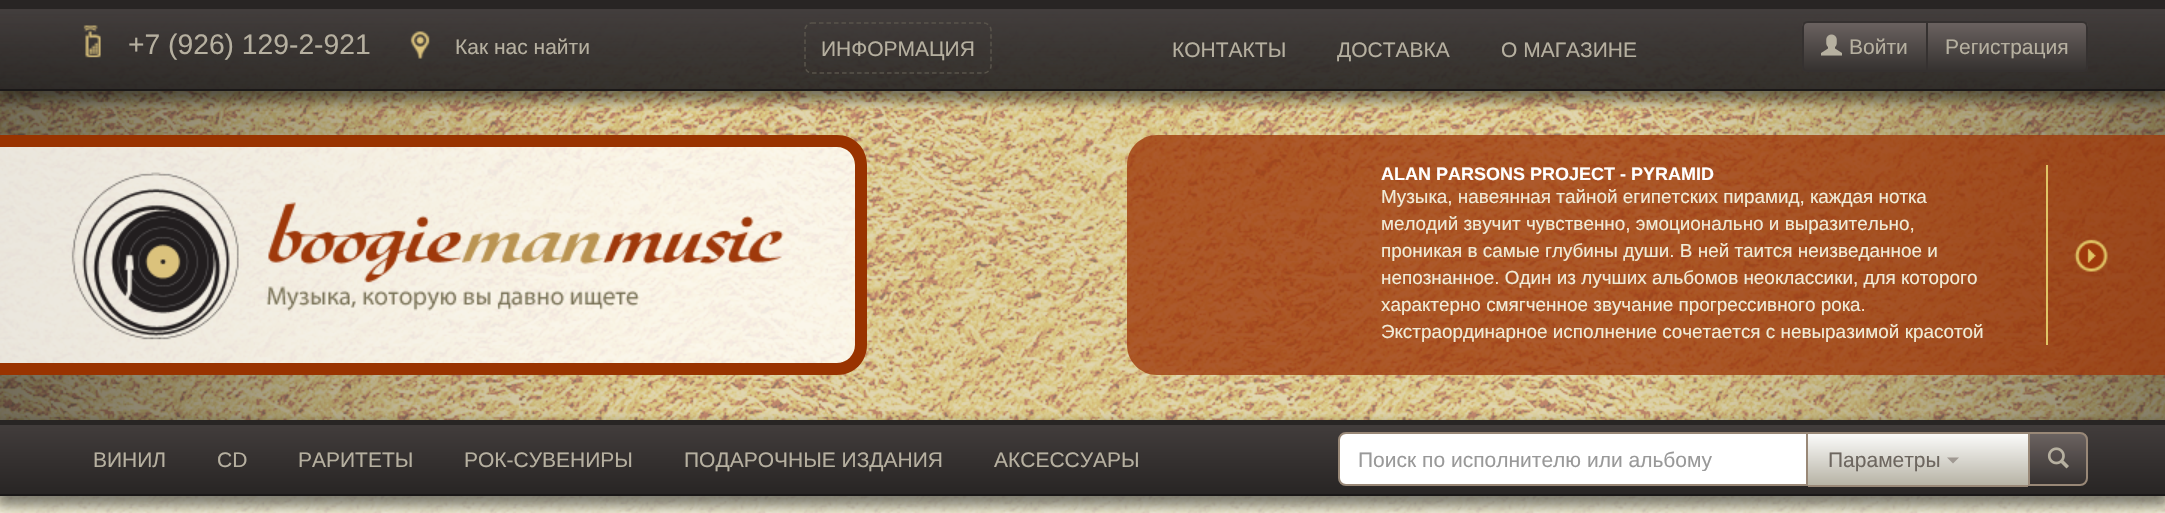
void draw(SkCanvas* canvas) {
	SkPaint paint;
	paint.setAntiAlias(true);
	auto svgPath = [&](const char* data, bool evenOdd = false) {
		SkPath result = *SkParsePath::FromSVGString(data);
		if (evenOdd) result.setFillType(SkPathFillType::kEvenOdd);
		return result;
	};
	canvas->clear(0xffffffff);
	canvas->drawImageRect(SkImages::DeferredFromEncodedData(SkData::MakeFromFileName("img1.png")), SkRect::MakeXYWH(0, 496, 2165, 17), SkSamplingOptions());
	canvas->drawImageRect(SkImages::DeferredFromEncodedData(SkData::MakeFromFileName("img2.png")), SkRect::MakeXYWH(0, 12, 2165, 408), SkSamplingOptions());
	canvas->save();
	canvas->clipRect(SkRect::MakeXYWH(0, 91, 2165, 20));
	paint.setColor(0x800c0b0a);
	paint.setMaskFilter(SkMaskFilter::MakeBlur(kNormal_SkBlurStyle, 6));
	canvas->drawRect(SkRect::MakeXYWH(-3, 5, 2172, 96), paint);
	paint.setMaskFilter(nullptr);
	canvas->restore();
	paint.setColor(0x80231f1e);
	canvas->drawRect(SkRect::MakeXYWH(0, 12, 2165, 77), paint);
	{
		const SkColor colors[] = {0xff423d3c, 0xd9282524};
		const float stops[] = {0, 1};
		const SkPoint ends[] = {{1083, 9}, {1083, 89}};
		paint.setShader(SkGradientShader::MakeLinear(ends, colors, stops, 2, SkTileMode::kClamp));
		paint.setAlpha(255);
	}
	canvas->drawRect(SkRect::MakeXYWH(0, 9, 2165, 80), paint);
	paint.setShader(nullptr);
	paint.setColor(0xff282524);
	canvas->drawRect(SkRect::MakeXYWH(0, 0, 2165, 9), paint);
	paint.setColor(0xff1a1818);
	canvas->drawRect(SkRect::MakeXYWH(0, 89, 2165, 2), paint);
	canvas->drawImageRect(SkImages::DeferredFromEncodedData(SkData::MakeFromFileName("img3.png")), SkRect::MakeXYWH(83, 25, 18, 33), SkSamplingOptions());
	SkFont f1(fontMgr->matchFamilyStyle("Liberation Sans", SkFontStyle::Normal()), 28.25);
	f1.setSubpixel(true);
	paint.setColor(0xffb6b0a0);
	canvas->drawString("+7 (926) 129-2-921", 128, 54, f1, paint);
	canvas->drawImageRect(SkImages::DeferredFromEncodedData(SkData::MakeFromFileName("img4.png")), SkRect::MakeXYWH(410, 31, 20, 28), SkSamplingOptions());
	SkFont f2(fontMgr->matchFamilyStyle("Liberation Sans", SkFontStyle::Normal()), 21);
	f2.setSubpixel(true);
	canvas->drawString("Как нас найти", 455, 54, f2, paint);
	paint.setStroke(true);
	paint.setStrokeWidth(1.5);
	paint.setColor(0xff58534a);
	paint.setPathEffect(SkDashPathEffect::Make({{4.5f, 3}}, 0));
	canvas->drawPath(svgPath("M811.5 23H984C987.5 23 991 26.5 991 30V66C991 69.5 987.5 73 984 73H811.5C808 73 805 69.5 805 66V30C805 26.5 808 23 811.5 23Z"), paint);
	paint.setPathEffect(nullptr);
	paint.setStroke(false);
	paint.setColor(0xffb6b0a0);
	canvas->drawString("ИНФОРМАЦИЯ", 821, 56, f2, paint);
	canvas->drawString("КОНТАКТЫ", 1172, 57, f2, paint);
	canvas->drawString("ДОСТАВКА", 1337, 57, f2, paint);
	canvas->drawString("О МАГАЗИНЕ", 1501, 57, f2, paint);
	canvas->save();
	canvas->clipPath(svgPath("M1808 21H1928V72H1808C1804.5 72 1802 69.5 1802 66V27C1802 23.5 1804.5 21 1808 21Z"), true);
	{
		const SkColor colors[] = {0xff6b6260, 0xff353130};
		const float stops[] = {0, 1};
		const SkPoint ends[] = {{1865, 22}, {1865, 71}};
		paint.setShader(SkGradientShader::MakeLinear(ends, colors, stops, 2, SkTileMode::kClamp));
		paint.setAlpha(255);
	}
	canvas->drawRect(SkRect::MakeXYWH(1802, 23, 124, 48), paint);
	canvas->restore();
	paint.setStroke(true);
	paint.setStrokeWidth(2);
	paint.setShader(nullptr);
	paint.setColor(0xff353130);
	canvas->drawPath(svgPath("M1808 22H1927V71H1808C1805 71 1803 69 1803 66V27C1803 24 1805 22 1808 22Z"), paint);
	canvas->drawImageRect(SkImages::DeferredFromEncodedData(SkData::MakeFromFileName("img5.png")), SkRect::MakeXYWH(1821, 34, 21, 22), SkSamplingOptions());
	paint.setStroke(false);
	paint.setColor(0xffb6b0a0);
	canvas->drawString("Войти", 1849, 54, f2, paint);
	canvas->save();
	canvas->clipPath(svgPath("M1926 21H2082C2085.5 21 2088 23.5 2088 27V66C2088 69.5 2085.5 72 2082 72H1926Z"), true);
	{
		const SkColor colors[] = {0xff6b6260, 0xff353130};
		const float stops[] = {0, 1};
		const SkPoint ends[] = {{2007, 22}, {2007, 71}};
		paint.setShader(SkGradientShader::MakeLinear(ends, colors, stops, 2, SkTileMode::kClamp));
		paint.setAlpha(255);
	}
	canvas->drawRect(SkRect::MakeXYWH(1928, 23, 160, 48), paint);
	canvas->restore();
	paint.setStroke(true);
	paint.setShader(nullptr);
	paint.setColor(0xff353130);
	canvas->drawPath(svgPath("M1927 22H2082C2085 22 2087 24 2087 27V66C2087 69 2085 71 2082 71H1927Z"), paint);
	paint.setStroke(false);
	paint.setColor(0xffb6b0a0);
	canvas->drawString("Регистрация", 1945, 54, f2, paint);
	paint.setColor(0xd9fffcf5);
	canvas->drawPath(svgPath("M0 147H837C847 147 855 155 855 165V345C855 355 847 363 837 363H0Z"), paint);
	canvas->drawImageRect(SkImages::DeferredFromEncodedData(SkData::MakeFromFileName("img6.png")), SkRect::MakeXYWH(71, 172, 713, 168), SkSamplingOptions());
	paint.setColor(0xff993300);
	canvas->drawPath(svgPath("M0 135H837C854 135 867 148 867 165V345C867 362 854 375 837 375H0ZM0 147H837C847 147 855 155 855 165V345C855 355 847 363 837 363H0Z", true), paint);
	paint.setColor(0xcc9f390b);
	canvas->drawPath(svgPath("M1157 135H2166V375H1157C1140.5 375 1127 361.5 1127 345V165C1127 148.5 1140.5 135 1157 135Z"), paint);
	SkFont f3(fontMgr->matchFamilyStyle("Liberation Sans", SkFontStyle::Bold()), 18);
	f3.setSubpixel(true);
	paint.setColor(0xffffffff);
	canvas->drawString("ALAN PARSONS PROJECT - PYRAMID", 1381, 180, f3, paint);
	SkFont f4(fontMgr->matchFamilyStyle("Liberation Sans", SkFontStyle::Normal()), 18.9);
	f4.setSubpixel(true);
	paint.setColor(0xfff0ecd7);
	canvas->drawString("Музыка, навеянная тайной египетских пирамид, каждая нотка", 1381, 203, f4, paint);
	canvas->drawString("мелодий звучит чувственно, эмоционально и выразительно,", 1381, 230, f4, paint);
	canvas->drawString("проникая в самые глубины души. В ней таится неизведанное и", 1381, 257, f4, paint);
	canvas->drawString("непознанное. Один из лучших альбомов неоклассики, для которого", 1381, 284, f4, paint);
	canvas->drawString("характерно смягченное звучание прогрессивного рока.", 1381, 311, f4, paint);
	canvas->drawString("Экстраординарное исполнение сочетается с невыразимой красотой", 1381, 338, f4, paint);
	canvas->drawImageRect(SkImages::DeferredFromEncodedData(SkData::MakeFromFileName("img7.png")), SkRect::MakeXYWH(2074, 239, 34, 33), SkSamplingOptions());
	paint.setColor(0xffe0c466);
	canvas->drawRect(SkRect::MakeXYWH(2046, 165, 2, 180), paint);
	paint.setColor(0x800c0b0a);
	paint.setMaskFilter(SkMaskFilter::MakeBlur(kNormal_SkBlurStyle, 6));
	canvas->drawRect(SkRect::MakeXYWH(-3, 425, 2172, 81), paint);
	paint.setMaskFilter(nullptr);
	{
		const SkColor colors[] = {0xff423d3c, 0xff282524};
		const float stops[] = {0, 1};
		const SkPoint ends[] = {{1083, 424}, {1083, 494}};
		paint.setShader(SkGradientShader::MakeLinear(ends, colors, stops, 2, SkTileMode::kClamp));
		paint.setAlpha(255);
	}
	canvas->drawRect(SkRect::MakeXYWH(0, 425, 2165, 69), paint);
	paint.setShader(nullptr);
	paint.setColor(0xff282524);
	canvas->drawRect(SkRect::MakeXYWH(0, 420, 2165, 5), paint);
	paint.setColor(0xff1a1818);
	canvas->drawRect(SkRect::MakeXYWH(0, 494, 2165, 2), paint);
	paint.setColor(0xffb6b0a0);
	canvas->drawString("ВИНИЛ", 93, 467, f2, paint);
	canvas->drawString("CD", 217, 467, f2, paint);
	canvas->drawString("РАРИТЕТЫ", 298, 467, f2, paint);
	canvas->drawString("РОК-СУВЕНИРЫ", 464, 467, f2, paint);
	canvas->drawString("ПОДАРОЧНЫЕ ИЗДАНИЯ", 684, 467, f2, paint);
	canvas->drawString("АКСЕССУАРЫ", 994, 467, f2, paint);
	paint.setColor(0xffffffff);
	canvas->drawPath(svgPath("M1346 433H1807V485H1346C1342 485 1339 482 1339 478V440C1339 436 1342 433 1346 433Z"), paint);
	paint.setStroke(true);
	paint.setColor(0xff998877);
	canvas->drawPath(svgPath("M1346 433H1807V485H1346C1342 485 1339 482 1339 478V440C1339 436 1342 433 1346 433Z"), paint);
	canvas->save();
	canvas->clipRect(SkRect::MakeXYWH(1358, 447, 430, 24));
	paint.setStroke(false);
	paint.setColor(0xff999999);
	canvas->drawString("Поиск по исполнителю или альбому", 1358, 467, f2, paint);
	canvas->restore();
	{
		const SkColor colors[] = {0xfffbfbfa, 0xffb7b3a5};
		const float stops[] = {0, 1};
		const SkPoint ends[] = {{1918, 434}, {1918, 485}};
		paint.setShader(SkGradientShader::MakeLinear(ends, colors, stops, 2, SkTileMode::kClamp));
		paint.setAlpha(255);
	}
	canvas->drawRect(SkRect::MakeXYWH(1808, 434, 220, 51), paint);
	paint.setShader(nullptr);
	paint.setColor(0xff998877);
	canvas->drawRect(SkRect::MakeXYWH(1808, 432, 220, 2), paint);
	canvas->drawRect(SkRect::MakeXYWH(1808, 485, 220, 2), paint);
	paint.setColor(0xff6d665f);
	canvas->drawString("Параметры", 1828, 467, f2, paint);
	paint.setColor(0xffa09992);
	canvas->drawPath(svgPath("M1947 457.5H1959L1953 463.5Z"), paint);
	canvas->save();
	canvas->clipPath(svgPath("M2028 432H2080C2084.5 432 2088 435.5 2088 440V478C2088 482.5 2084.5 486 2080 486H2028Z"), true);
	{
		const SkColor colors[] = {0xff6b6260, 0xff353130};
		const float stops[] = {0, 1};
		const SkPoint ends[] = {{2058, 434}, {2058, 485}};
		paint.setShader(SkGradientShader::MakeLinear(ends, colors, stops, 2, SkTileMode::kClamp));
		paint.setAlpha(255);
	}
	canvas->drawRect(SkRect::MakeXYWH(2030, 434, 58, 51), paint);
	canvas->restore();
	paint.setStroke(true);
	paint.setShader(nullptr);
	paint.setColor(0xff998877);
	canvas->drawPath(svgPath("M2029 433H2080C2084 433 2087 436 2087 440V478C2087 482 2084 485 2080 485H2029Z"), paint);
	canvas->drawImageRect(SkImages::DeferredFromEncodedData(SkData::MakeFromFileName("img8.png")), SkRect::MakeXYWH(2047, 447, 22, 22), SkSamplingOptions());
}
